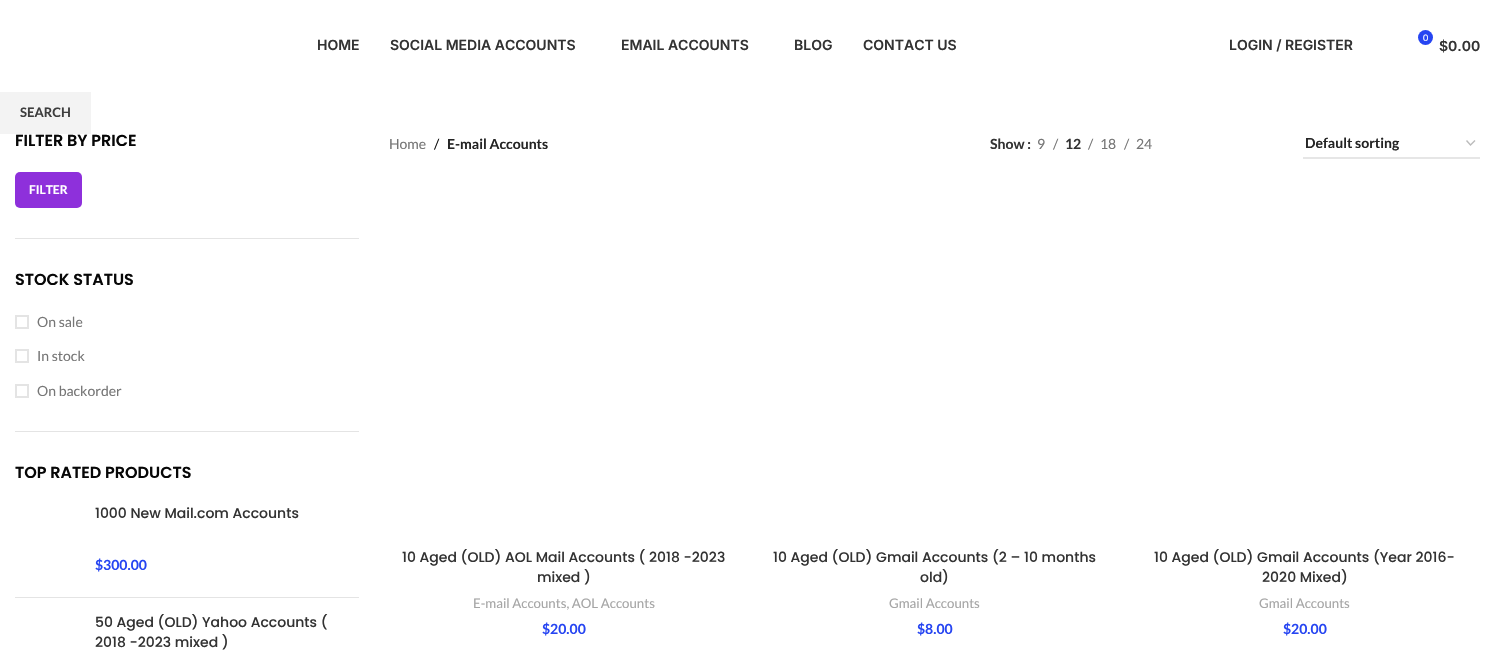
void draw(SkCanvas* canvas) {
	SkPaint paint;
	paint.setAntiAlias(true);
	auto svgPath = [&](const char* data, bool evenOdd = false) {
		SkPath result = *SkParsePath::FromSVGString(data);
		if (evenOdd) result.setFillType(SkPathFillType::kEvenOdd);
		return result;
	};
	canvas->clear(0xffffffff);
	SkFont f1(fontMgr->matchFamilyStyle("Inter", SkFontStyle(600, SkFontStyle::kNormal_Width, SkFontStyle::kUpright_Slant)), 14);
	f1.setSubpixel(true);
	paint.setColor(0xff333333);
	canvas->drawString("HOME", 317, 50, f1, paint);
	canvas->drawString("SOCIAL MEDIA ACCOUNTS", 390, 50, f1, paint);
	canvas->drawString("EMAIL ACCOUNTS", 621, 50, f1, paint);
	canvas->drawString("BLOG", 794, 50, f1, paint);
	canvas->drawString("CONTACT US", 863, 50, f1, paint);
	canvas->drawString("LOGIN / REGISTER", 1229, 50, f1, paint);
	paint.setColor(0xff2645f2);
	canvas->drawCircle(1425.5, 37.5, 7.5, paint);
	SkFont f2(fontMgr->matchFamilyStyle("Lato", SkFontStyle::Normal()), 9);
	f2.setSubpixel(true);
	paint.setColor(0xffffffff);
	canvas->drawString("0", 1423, 41, f2, paint);
	paint.setColor(0xff333333);
	canvas->drawString("$0.00", 1439, 51, f1, paint);
	paint.setColor(0xffe4e4e4);
	canvas->drawRect(SkRect::MakeXYWH(15, 238, 344, 1), paint);
	SkFont f3(fontMgr->matchFamilyStyle("Poppins", SkFontStyle(600, SkFontStyle::kNormal_Width, SkFontStyle::kUpright_Slant)), 16);
	f3.setSubpixel(true);
	paint.setColor(0xff070707);
	canvas->drawString("FILTER BY PRICE", 15, 146, f3, paint);
	paint.setColor(0xff8e30db);
	canvas->drawRoundRect(SkRect::MakeXYWH(15, 172, 67, 36), 5, 5, paint);
	SkFont f4(fontMgr->matchFamilyStyle("Lato", SkFontStyle::Bold()), 12);
	f4.setSubpixel(true);
	paint.setColor(0xffffffff);
	canvas->drawString("FILTER", 29, 194, f4, paint);
	paint.setColor(0xffe4e4e4);
	canvas->drawRect(SkRect::MakeXYWH(15, 431, 344, 1), paint);
	paint.setColor(0xff070707);
	canvas->drawString("STOCK STATUS", 15, 285, f3, paint);
	paint.setStroke(true);
	paint.setStrokeWidth(2);
	paint.setColor(0xffe4e4e4);
	canvas->drawRect(SkRect::MakeXYWH(16, 316, 12, 12), paint);
	SkFont f5(fontMgr->matchFamilyStyle("Lato", SkFontStyle::Normal()), 14);
	f5.setSubpixel(true);
	paint.setStroke(false);
	paint.setColor(0xff767676);
	canvas->drawString("On sale", 37, 327, f5, paint);
	paint.setStroke(true);
	paint.setColor(0xffe4e4e4);
	canvas->drawRect(SkRect::MakeXYWH(16, 350, 12, 12), paint);
	paint.setStroke(false);
	paint.setColor(0xff767676);
	canvas->drawString("In stock", 37, 361, f5, paint);
	paint.setStroke(true);
	paint.setColor(0xffe4e4e4);
	canvas->drawRect(SkRect::MakeXYWH(16, 385, 12, 12), paint);
	paint.setStroke(false);
	paint.setColor(0xff767676);
	canvas->drawString("On backorder", 37, 396, f5, paint);
	paint.setColor(0xff070707);
	canvas->drawString("TOP RATED PRODUCTS", 15, 478, f3, paint);
	paint.setColor(0xffe4e4e4);
	canvas->drawRect(SkRect::MakeXYWH(15, 597, 344, 1), paint);
	SkFont f6(fontMgr->matchFamilyStyle("Poppins", SkFontStyle(500, SkFontStyle::kNormal_Width, SkFontStyle::kUpright_Slant)), 14);
	f6.setSubpixel(true);
	paint.setColor(0xff333333);
	canvas->drawString("1000 New Mail.com Accounts", 95, 518, f6, paint);
	SkFont f7(fontMgr->matchFamilyStyle("Lato", SkFontStyle::Bold()), 14);
	f7.setSubpixel(true);
	paint.setColor(0xff2645f2);
	canvas->drawString("$300.00", 95, 570, f7, paint);
	paint.setColor(0xff333333);
	canvas->drawString("50 Aged (OLD) Yahoo Accounts (", 95, 627, f6, paint);
	canvas->drawString("2018 -2023 mixed )", 95, 647, f6, paint);
	paint.setColor(0xff767676);
	canvas->drawString("Home", 389, 149, f5, paint);
	paint.setColor(0xff0f0f0f);
	canvas->drawString("/", 434, 149, f5, paint);
	paint.setColor(0xff242424);
	canvas->drawString("E-mail Accounts", 447, 149, f7, paint);
	paint.setColor(0xff333333);
	canvas->drawString("Show :", 990, 149, f7, paint);
	paint.setColor(0xff767676);
	canvas->drawString("9", 1037, 149, f5, paint);
	canvas->drawString("/", 1053, 149, f5, paint);
	paint.setColor(0xff333333);
	canvas->drawString("12", 1065, 149, f7, paint);
	paint.setColor(0xff767676);
	canvas->drawString("/", 1088, 149, f5, paint);
	canvas->drawString("18", 1100, 149, f5, paint);
	canvas->drawString("/", 1124, 149, f5, paint);
	canvas->drawString("24", 1136, 149, f5, paint);
	paint.setStroke(true);
	paint.setStrokeWidth(1.4);
	paint.setColor(0xffbbbbbb);
	canvas->drawPath(svgPath("M1466.5 140.5L1470.5 145L1475 140.5"), paint);
	paint.setStroke(false);
	paint.setColor(0xffe6e6e6);
	canvas->drawRect(SkRect::MakeXYWH(1303, 157, 177, 2), paint);
	paint.setColor(0xff242424);
	canvas->drawString("Default sorting", 1305, 148, f7, paint);
	paint.setColor(0xff333333);
	canvas->drawString("10 Aged (OLD) AOL Mail Accounts ( 2018 -2023", 402, 562, f6, paint);
	canvas->drawString("mixed )", 537, 582, f6, paint);
	SkFont f8(fontMgr->matchFamilyStyle("Lato", SkFontStyle::Normal()), 13.25);
	f8.setSubpixel(true);
	paint.setColor(0xffa5a5a5);
	canvas->drawString("E-mail Accounts, AOL Accounts", 473, 608, f8, paint);
	paint.setColor(0xff2645f2);
	canvas->drawString("$20.00", 542, 634, f7, paint);
	paint.setColor(0xff333333);
	canvas->drawString("10 Aged (OLD) Gmail Accounts (2 – 10 months", 773, 562, f6, paint);
	canvas->drawString("old)", 920, 582, f6, paint);
	paint.setColor(0xffa5a5a5);
	canvas->drawString("Gmail Accounts", 889, 608, f8, paint);
	paint.setColor(0xff2645f2);
	canvas->drawString("$8.00", 917, 634, f7, paint);
	paint.setColor(0xff333333);
	canvas->drawString("10 Aged (OLD) Gmail Accounts (Year 2016-", 1154, 562, f6, paint);
	canvas->drawString("2020 Mixed)", 1262, 582, f6, paint);
	paint.setColor(0xffa5a5a5);
	canvas->drawString("Gmail Accounts", 1259, 608, f8, paint);
	paint.setColor(0xff2645f2);
	canvas->drawString("$20.00", 1283, 634, f7, paint);
	paint.setColor(0xfff3f3f3);
	canvas->drawRect(SkRect::MakeXYWH(0, 92, 91, 42), paint);
	SkFont f9(fontMgr->matchFamilyStyle("Lato", SkFontStyle::Bold()), 13);
	f9.setSubpixel(true);
	paint.setColor(0xff3e3e3e);
	canvas->drawString("SEARCH", 20, 117, f9, paint);
}
